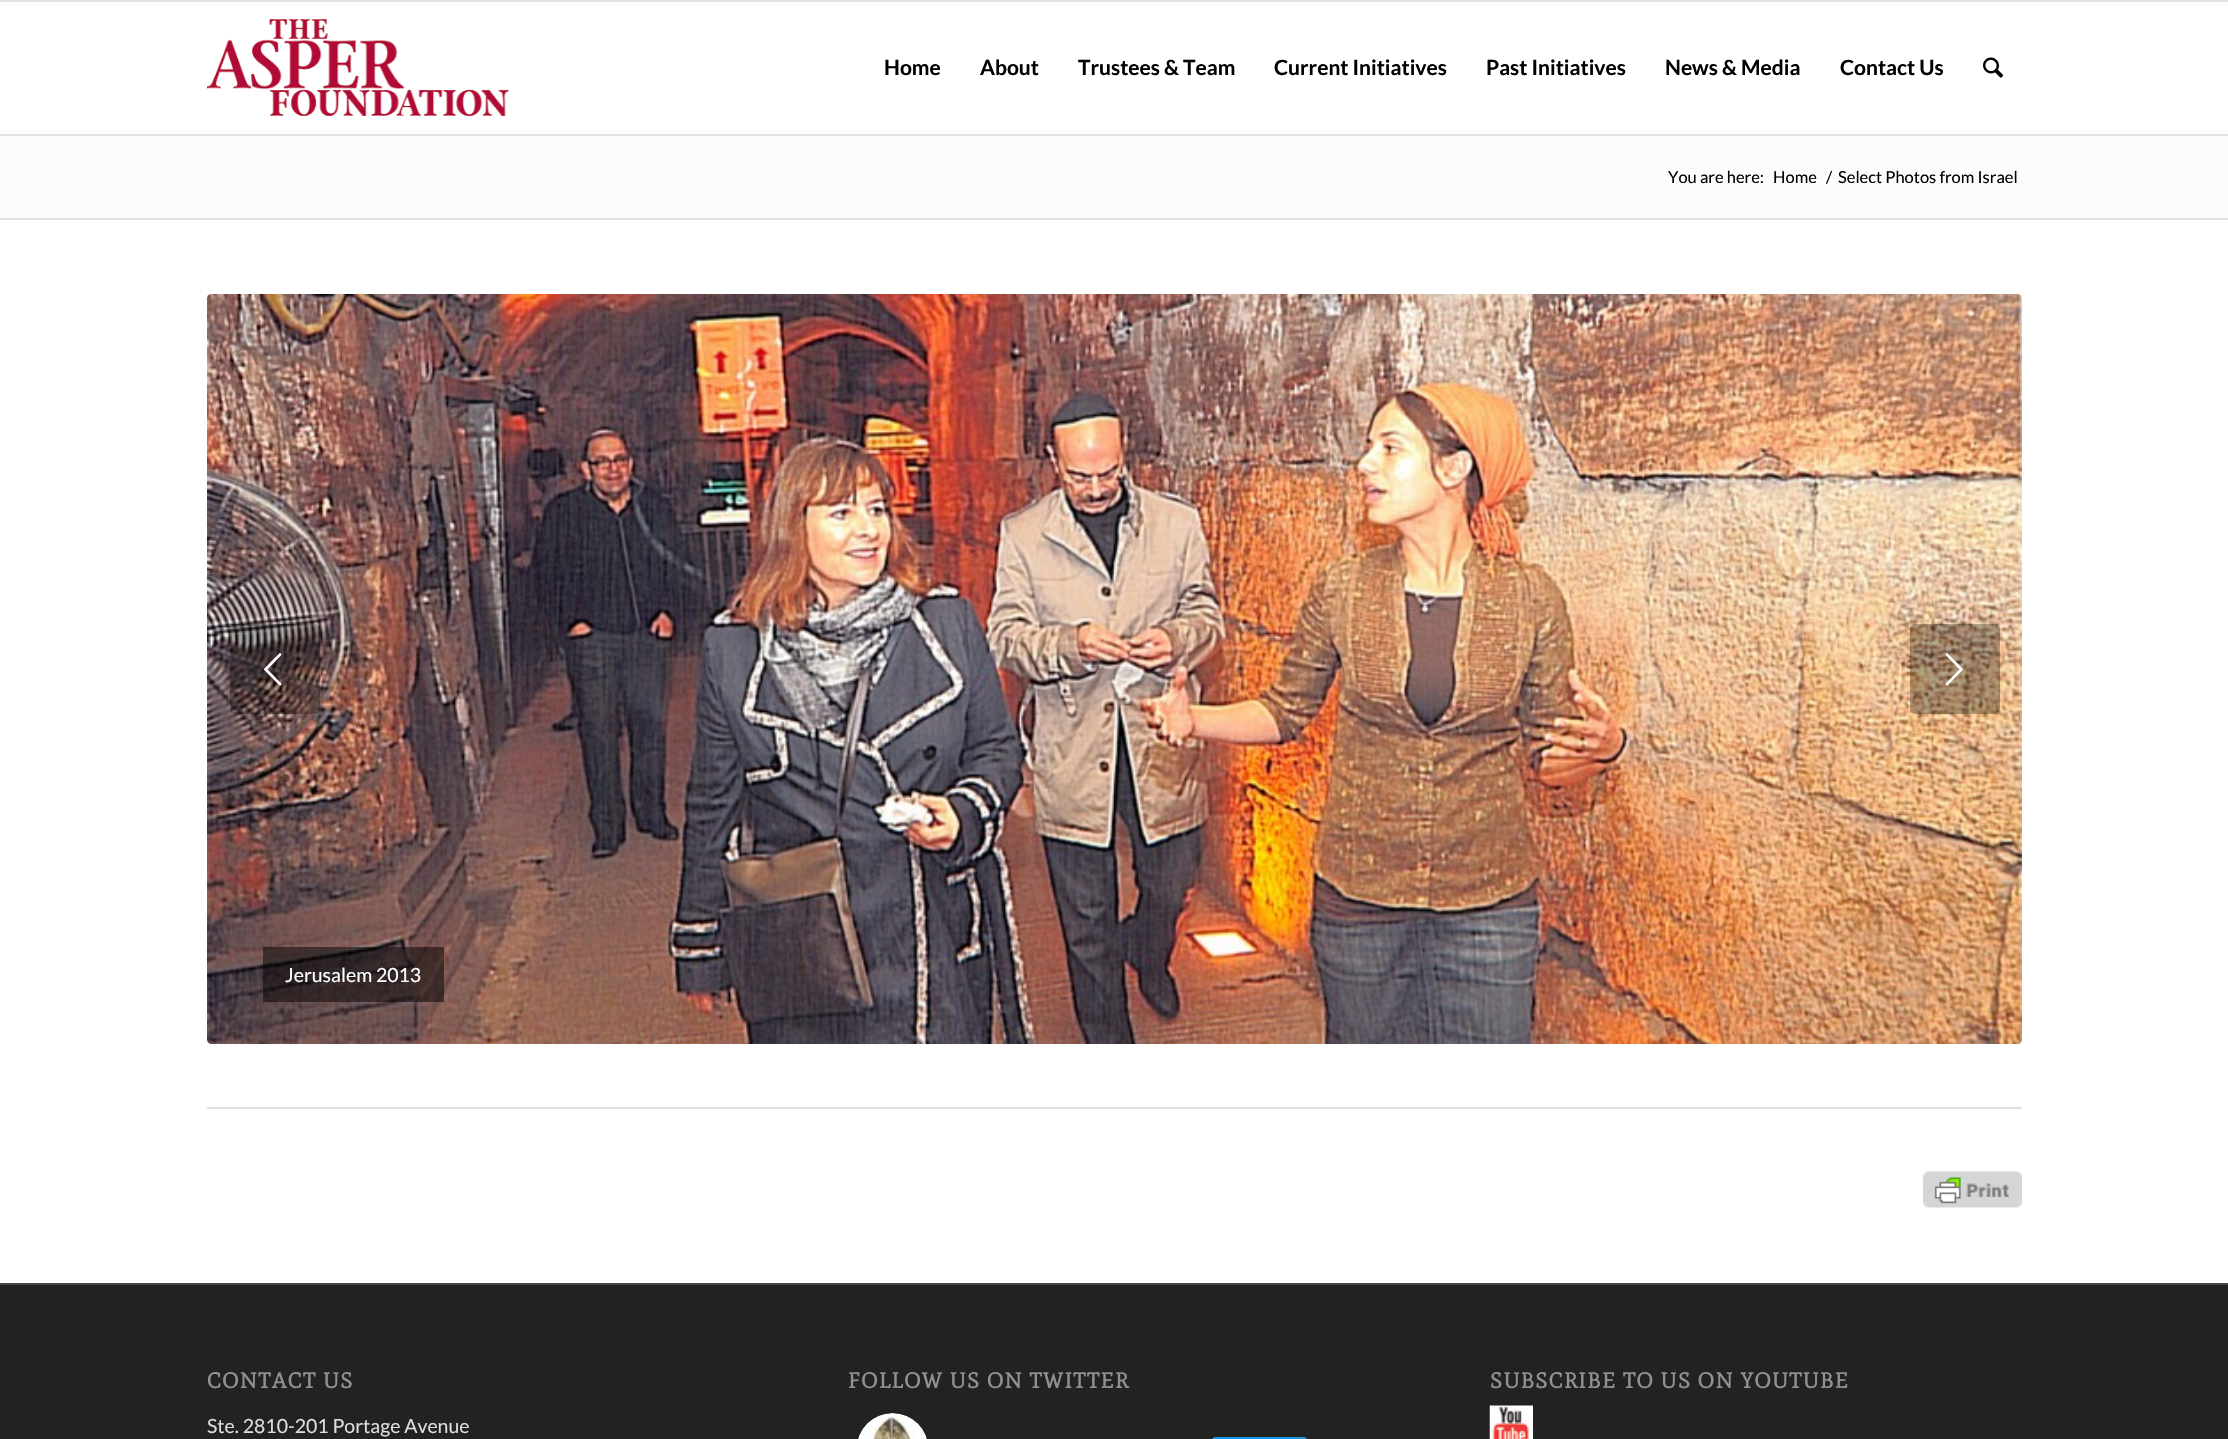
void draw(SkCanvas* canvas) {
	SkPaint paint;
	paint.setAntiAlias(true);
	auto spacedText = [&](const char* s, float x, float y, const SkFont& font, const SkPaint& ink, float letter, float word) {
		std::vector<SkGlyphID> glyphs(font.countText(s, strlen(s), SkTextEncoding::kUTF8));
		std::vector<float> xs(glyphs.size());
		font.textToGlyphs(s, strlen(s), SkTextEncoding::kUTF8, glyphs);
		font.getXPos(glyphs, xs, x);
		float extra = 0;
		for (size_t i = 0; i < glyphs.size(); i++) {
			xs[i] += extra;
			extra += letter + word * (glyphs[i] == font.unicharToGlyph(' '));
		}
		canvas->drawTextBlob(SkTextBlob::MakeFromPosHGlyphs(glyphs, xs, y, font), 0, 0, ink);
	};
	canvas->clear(0xffffffff);
	paint.setColor(0xffe1e1e1);
	canvas->drawRect(SkRect::MakeXYWH(0, 0, 2228, 2), paint);
	canvas->drawRect(SkRect::MakeXYWH(0, 134, 2228, 2), paint);
	canvas->drawImageRect(SkImages::DeferredFromEncodedData(SkData::MakeFromFileName("img1.png")), SkRect::MakeXYWH(207, 19, 302, 97), SkSamplingOptions());
	SkFont f1(fontMgr->matchFamilyStyle("Lato", SkFontStyle::Bold()), 21);
	f1.setSubpixel(true);
	paint.setColor(0xff000000);
	canvas->drawString("Home", 884, 75, f1, paint);
	canvas->drawString("About", 980, 75, f1, paint);
	canvas->drawString("Trustees & Team", 1078, 75, f1, paint);
	canvas->drawString("Current Initiatives", 1274, 75, f1, paint);
	canvas->drawString("Past Initiatives", 1486, 75, f1, paint);
	canvas->drawString("News & Media", 1665, 75, f1, paint);
	canvas->drawString("Contact Us", 1840, 75, f1, paint);
	canvas->drawImageRect(SkImages::DeferredFromEncodedData(SkData::MakeFromFileName("img2.png")), SkRect::MakeXYWH(1983, 57, 21, 21), SkSamplingOptions());
	paint.setColor(0xfffcfcfc);
	canvas->drawRect(SkRect::MakeXYWH(0, 136, 2228, 82), paint);
	SkFont f2(fontMgr->matchFamilyStyle("Lato", SkFontStyle::Normal()), 16.5);
	f2.setSubpixel(true);
	paint.setColor(0xff000000);
	canvas->drawString("You are here:", 1668, 183, f2, paint);
	canvas->drawString("Home", 1773, 183, f2, paint);
	canvas->drawString("/", 1826, 183, f2, paint);
	canvas->drawString("Select Photos from Israel", 1838, 183, f2, paint);
	paint.setColor(0xffe1e1e1);
	canvas->drawRect(SkRect::MakeXYWH(0, 218, 2228, 2), paint);
	canvas->drawImageRect(SkImages::DeferredFromEncodedData(SkData::MakeFromFileName("img5.png")), SkRect::MakeXYWH(207, 294, 1815, 750), SkSamplingOptions());
	paint.setColor(0x4d000000);
	canvas->drawRoundRect(SkRect::MakeXYWH(230, 624, 90, 90), 5, 5, paint);
	canvas->drawImageRect(SkImages::DeferredFromEncodedData(SkData::MakeFromFileName("img3.png")), SkRect::MakeXYWH(264, 653, 18, 33), SkSamplingOptions());
	canvas->drawRoundRect(SkRect::MakeXYWH(1910, 624, 90, 90), 5, 5, paint);
	canvas->drawImageRect(SkImages::DeferredFromEncodedData(SkData::MakeFromFileName("img4.png")), SkRect::MakeXYWH(1945, 653, 18, 33), SkSamplingOptions());
	paint.setColor(0x80000000);
	canvas->drawRect(SkRect::MakeXYWH(263, 947, 181, 55), paint);
	SkFont f3(fontMgr->matchFamilyStyle("Lato", SkFontStyle::Normal()), 19.5);
	f3.setSubpixel(true);
	paint.setColor(0xffffffff);
	canvas->drawString("Jerusalem 2013", 285, 982, f3, paint);
	paint.setColor(0xffe1e1e1);
	canvas->drawRect(SkRect::MakeXYWH(207, 1107, 1815, 2), paint);
	canvas->drawImageRect(SkImages::DeferredFromEncodedData(SkData::MakeFromFileName("img6.png")), SkRect::MakeXYWH(1923, 1171, 99, 37), SkSamplingOptions());
	paint.setColor(0xff222222);
	canvas->drawRect(SkRect::MakeXYWH(0, 1285, 2228, 154), paint);
	paint.setColor(0xff444444);
	canvas->drawRect(SkRect::MakeXYWH(0, 1283, 2228, 2), paint);
	SkFont f4(fontMgr->matchFamilyStyle("Mate SC", SkFontStyle::Bold()), 21.5);
	f4.setSubpixel(true);
	paint.setColor(0xff919191);
	spacedText("CONTACT US", 207, 1388, f4, paint, 1.5, 0);
	paint.setColor(0xffdddddd);
	canvas->drawString("Ste. 2810-201 Portage Avenue", 207, 1433, f3, paint);
	paint.setColor(0xff919191);
	spacedText("FOLLOW US ON TWITTER", 848, 1388, f4, paint, 1.5, 0);
	canvas->drawImageRect(SkImages::DeferredFromEncodedData(SkData::MakeFromFileName("img7.png")), SkRect::MakeXYWH(858, 1413, 69, 26), SkSamplingOptions());
	paint.setColor(0xff1b95e0);
	canvas->drawRoundRect(SkRect::MakeXYWH(1212, 1437, 95, 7), 5, 5, paint);
	paint.setColor(0xff919191);
	spacedText("SUBSCRIBE TO US ON YOUTUBE", 1490, 1388, f4, paint, 1.5, 0);
	canvas->drawImageRect(SkImages::DeferredFromEncodedData(SkData::MakeFromFileName("img8.png")), SkRect::MakeXYWH(1489, 1405, 44, 34), SkSamplingOptions());
}
